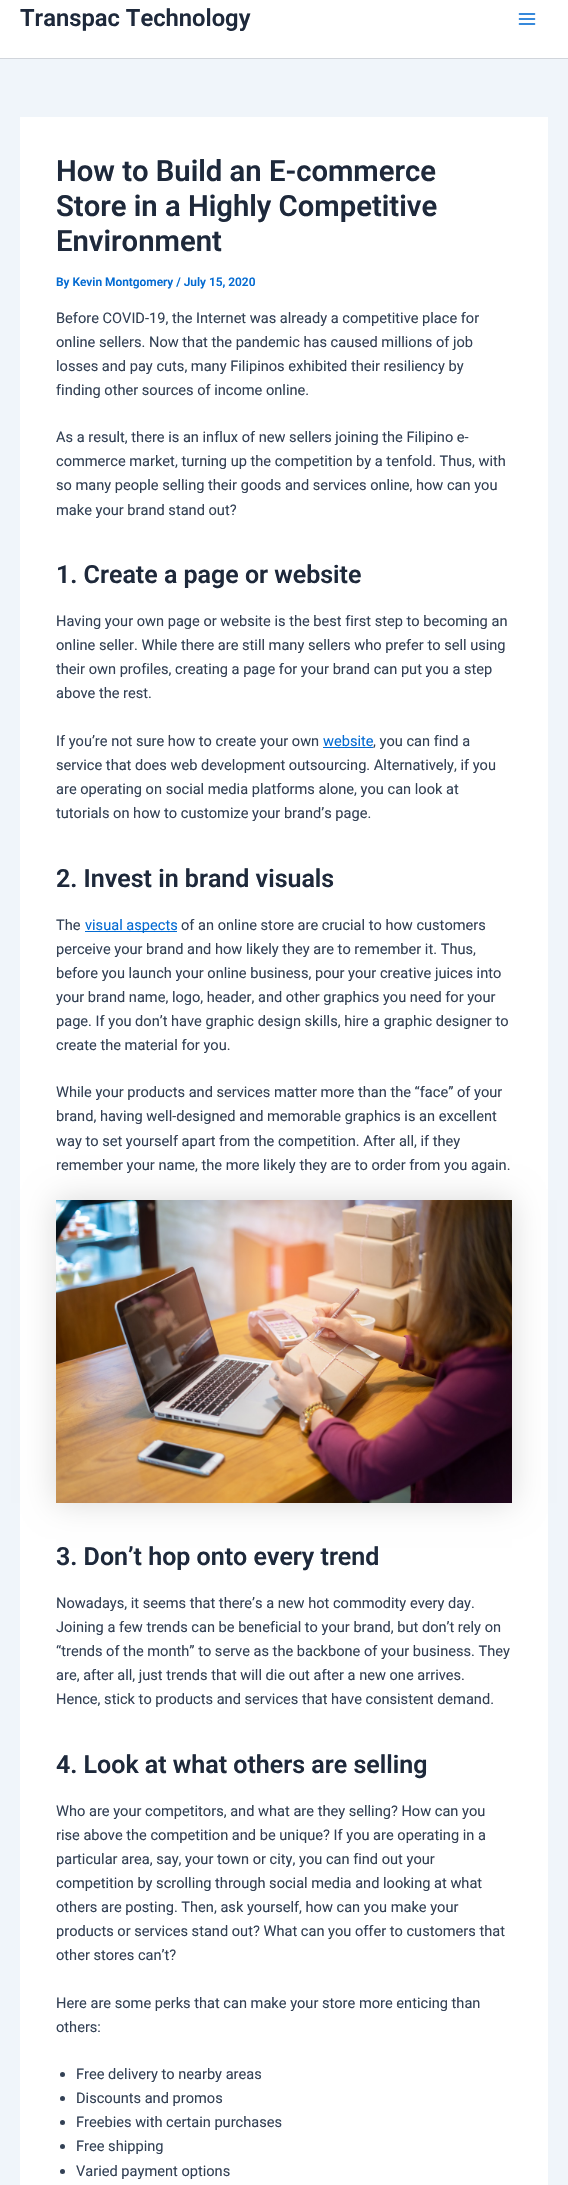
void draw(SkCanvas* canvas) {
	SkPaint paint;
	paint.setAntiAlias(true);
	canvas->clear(0xfff0f5fa);
	paint.setColor(0xffffffff);
	canvas->drawRect(SkRect::MakeXYWH(0, 0, 568, 58), paint);
	paint.setColor(0xffd1d5db);
	canvas->drawRect(SkRect::MakeXYWH(0, 58, 568, 1), paint);
	SkFont f1(fontMgr->matchFamilyStyle("Roboto", SkFontStyle(600, SkFontStyle::kNormal_Width, SkFontStyle::kUpright_Slant)), 23.75);
	f1.setSubpixel(true);
	paint.setColor(0xff1e293b);
	canvas->drawString("Transpac Technology", 20, 26, f1, paint);
	canvas->drawImageRect(SkImages::DeferredFromEncodedData(SkData::MakeFromFileName("img1.png")), SkRect::MakeXYWH(518, 13, 18, 12), SkSamplingOptions());
	paint.setColor(0xffffffff);
	canvas->drawRect(SkRect::MakeXYWH(20, 117, 528, 2068), paint);
	SkFont f2(fontMgr->matchFamilyStyle("Roboto", SkFontStyle(600, SkFontStyle::kNormal_Width, SkFontStyle::kUpright_Slant)), 29.25);
	f2.setSubpixel(true);
	paint.setColor(0xff1e293b);
	canvas->drawString("How to Build an E-commerce", 56, 181, f2, paint);
	canvas->drawString("Store in a Highly Competitive", 56, 216, f2, paint);
	canvas->drawString("Environment", 56, 251, f2, paint);
	SkFont f3(fontMgr->matchFamilyStyle("Roboto", SkFontStyle(600, SkFontStyle::kNormal_Width, SkFontStyle::kUpright_Slant)), 11.9);
	f3.setSubpixel(true);
	paint.setColor(0xff046bd2);
	canvas->drawString("By Kevin Montgomery / July 15, 2020", 56, 286, f3, paint);
	SkFont f4(fontMgr->matchFamilyStyle("Roboto", SkFontStyle::Normal()), 14.6);
	f4.setSubpixel(true);
	paint.setColor(0xff334155);
	canvas->drawString("Before COVID-19, the Internet was already a competitive place for", 56, 323, f4, paint);
	canvas->drawString("online sellers. Now that the pandemic has caused millions of job", 56, 347, f4, paint);
	canvas->drawString("losses and pay cuts, many Filipinos exhibited their resiliency by", 56, 371, f4, paint);
	canvas->drawString("finding other sources of income online.", 56, 395, f4, paint);
	canvas->drawString("As a result, there is an influx of new sellers joining the Filipino e-", 56, 442, f4, paint);
	canvas->drawString("commerce market, turning up the competition by a tenfold. Thus, with", 56, 466, f4, paint);
	canvas->drawString("so many people selling their goods and services online, how can you", 56, 490, f4, paint);
	canvas->drawString("make your brand stand out?", 56, 515, f4, paint);
	SkFont f5(fontMgr->matchFamilyStyle("Roboto", SkFontStyle(600, SkFontStyle::kNormal_Width, SkFontStyle::kUpright_Slant)), 25);
	f5.setSubpixel(true);
	paint.setColor(0xff1e293b);
	canvas->drawString("1. Create a page or website", 56, 583, f5, paint);
	paint.setColor(0xff334155);
	canvas->drawString("Having your own page or website is the best first step to becoming an", 56, 626, f4, paint);
	canvas->drawString("online seller. While there are still many sellers who prefer to sell using", 56, 650, f4, paint);
	canvas->drawString("their own profiles, creating a page for your brand can put you a step", 56, 674, f4, paint);
	canvas->drawString("above the rest.", 56, 698, f4, paint);
	canvas->drawString("If you’re not sure how to create your own", 56, 746, f4, paint);
	paint.setColor(0xff046bd2);
	canvas->drawString("website", 323, 746, f4, paint);
	canvas->drawRect(SkRect::MakeXYWH(323, 747, 50, 1), paint);
	paint.setColor(0xff334155);
	canvas->drawString(", you can find a", 373, 746, f4, paint);
	canvas->drawString("service that does web development outsourcing. Alternatively, if you", 56, 770, f4, paint);
	canvas->drawString("are operating on social media platforms alone, you can look at", 56, 794, f4, paint);
	canvas->drawString("tutorials on how to customize your brand’s page.", 56, 818, f4, paint);
	paint.setColor(0xff1e293b);
	canvas->drawString("2. Invest in brand visuals", 56, 887, f5, paint);
	paint.setColor(0xff334155);
	canvas->drawString("The", 56, 930, f4, paint);
	paint.setColor(0xff046bd2);
	canvas->drawRect(SkRect::MakeXYWH(85, 931, 92, 1), paint);
	canvas->drawString("visual aspects", 85, 930, f4, paint);
	paint.setColor(0xff334155);
	canvas->drawString("of an online store are crucial to how customers", 181, 930, f4, paint);
	canvas->drawString("perceive your brand and how likely they are to remember it. Thus,", 56, 954, f4, paint);
	canvas->drawString("before you launch your online business, pour your creative juices into", 56, 978, f4, paint);
	canvas->drawString("your brand name, logo, header, and other graphics you need for your", 56, 1002, f4, paint);
	canvas->drawString("page. If you don’t have graphic design skills, hire a graphic designer to", 56, 1026, f4, paint);
	canvas->drawString("create the material for you.", 56, 1050, f4, paint);
	canvas->drawString("While your products and services matter more than the “face” of your", 56, 1097, f4, paint);
	canvas->drawString("brand, having well-designed and memorable graphics is an excellent", 56, 1121, f4, paint);
	canvas->drawString("way to set yourself apart from the competition. After all, if they", 56, 1146, f4, paint);
	paint.setColor(0x26000000);
	paint.setMaskFilter(SkMaskFilter::MakeBlur(kNormal_SkBlurStyle, 15));
	canvas->drawRect(SkRect::MakeXYWH(56, 1200, 456, 303), paint);
	paint.setMaskFilter(nullptr);
	paint.setColor(0xff334155);
	canvas->drawString("remember your name, the more likely they are to order from you again.", 56, 1170, f4, paint);
	canvas->drawImageRect(SkImages::DeferredFromEncodedData(SkData::MakeFromFileName("img2.png")), SkRect::MakeXYWH(56, 1200, 456, 303), SkSamplingOptions());
	paint.setColor(0xff1e293b);
	canvas->drawString("3. Don’t hop onto every trend", 56, 1565, f5, paint);
	paint.setColor(0xff334155);
	canvas->drawString("Nowadays, it seems that there’s a new hot commodity every day.", 56, 1608, f4, paint);
	canvas->drawString("Joining a few trends can be beneficial to your brand, but don’t rely on", 56, 1632, f4, paint);
	canvas->drawString("“trends of the month” to serve as the backbone of your business. They", 56, 1656, f4, paint);
	canvas->drawString("are, after all, just trends that will die out after a new one arrives.", 56, 1680, f4, paint);
	canvas->drawString("Hence, stick to products and services that have consistent demand.", 56, 1704, f4, paint);
	paint.setColor(0xff1e293b);
	canvas->drawString("4. Look at what others are selling", 56, 1773, f5, paint);
	paint.setColor(0xff334155);
	canvas->drawString("Who are your competitors, and what are they selling? How can you", 56, 1816, f4, paint);
	canvas->drawString("rise above the competition and be unique? If you are operating in a", 56, 1840, f4, paint);
	canvas->drawString("particular area, say, your town or city, you can find out your", 56, 1864, f4, paint);
	canvas->drawString("competition by scrolling through social media and looking at what", 56, 1888, f4, paint);
	canvas->drawString("others are posting. Then, ask yourself, how can you make your", 56, 1912, f4, paint);
	canvas->drawString("products or services stand out? What can you offer to customers that", 56, 1936, f4, paint);
	canvas->drawString("other stores can’t?", 56, 1960, f4, paint);
	canvas->drawString("Here are some perks that can make your store more enticing than", 56, 2008, f4, paint);
	canvas->drawString("others:", 56, 2032, f4, paint);
	canvas->drawCircle(62.5, 2074.5, 2.5, paint);
	canvas->drawString("Free delivery to nearby areas", 76, 2079, f4, paint);
	canvas->drawCircle(62.5, 2098.5, 2.5, paint);
	canvas->drawString("Discounts and promos", 76, 2103, f4, paint);
	canvas->drawCircle(62.5, 2122.5, 2.5, paint);
	canvas->drawString("Freebies with certain purchases", 76, 2127, f4, paint);
	canvas->drawCircle(62.5, 2146.5, 2.5, paint);
	canvas->drawString("Free shipping", 76, 2151, f4, paint);
	canvas->drawCircle(62.5, 2171.5, 2.5, paint);
	canvas->drawString("Varied payment options", 76, 2176, f4, paint);
}
